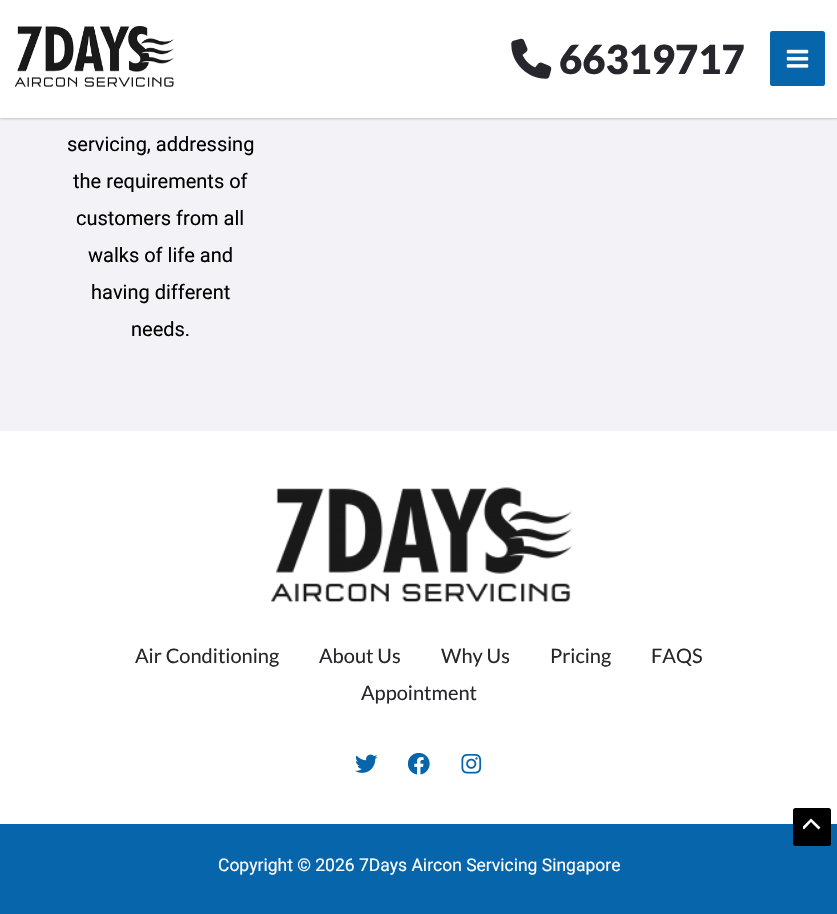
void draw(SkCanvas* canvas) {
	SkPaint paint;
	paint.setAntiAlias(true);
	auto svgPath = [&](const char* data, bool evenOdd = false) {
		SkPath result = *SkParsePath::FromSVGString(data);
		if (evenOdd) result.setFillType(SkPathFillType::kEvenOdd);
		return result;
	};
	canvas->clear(0xffffffff);
	paint.setColor(0xfff2f2f7);
	canvas->drawRect(SkRect::MakeXYWH(0, 118, 837, 313), paint);
	paint.setColor(0x33000000);
	paint.setMaskFilter(SkMaskFilter::MakeBlur(kNormal_SkBlurStyle, 1));
	canvas->drawRect(SkRect::MakeXYWH(0, 1, 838, 118), paint);
	paint.setMaskFilter(nullptr);
	paint.setColor(0xffffffff);
	canvas->drawRect(SkRect::MakeXYWH(0, 0, 837, 118), paint);
	canvas->drawImageRect(SkImages::DeferredFromEncodedData(SkData::MakeFromFileName("img1.png")), SkRect::MakeXYWH(14, 25, 161, 62), SkSamplingOptions());
	canvas->drawImageRect(SkImages::DeferredFromEncodedData(SkData::MakeFromFileName("img2.png")), SkRect::MakeXYWH(511, 38, 41, 41), SkSamplingOptions());
	SkFont f1(fontMgr->matchFamilyStyle("Lato", SkFontStyle(900, SkFontStyle::kNormal_Width, SkFontStyle::kUpright_Slant)), 40);
	f1.setSubpixel(true);
	paint.setColor(0xff26262c);
	canvas->drawString("66319717", 559, 74, f1, paint);
	paint.setColor(0xff0765ab);
	canvas->drawRoundRect(SkRect::MakeXYWH(770, 31, 55, 55), 2.5, 2.5, paint);
	canvas->drawImageRect(SkImages::DeferredFromEncodedData(SkData::MakeFromFileName("img3.png")), SkRect::MakeXYWH(786, 49, 23, 19), SkSamplingOptions());
	SkFont f2(fontMgr->matchFamilyStyle("Roboto", SkFontStyle::Normal()), 20);
	f2.setSubpixel(true);
	paint.setColor(0xff000000);
	canvas->drawString("servicing, addressing", 67, 151, f2, paint);
	canvas->drawString("the requirements of", 73, 188, f2, paint);
	canvas->drawString("customers from all", 76, 225, f2, paint);
	canvas->drawString("walks of life and", 88, 262, f2, paint);
	canvas->drawString("having different", 91, 299, f2, paint);
	canvas->drawString("needs.", 131, 336, f2, paint);
	canvas->drawImageRect(SkImages::DeferredFromEncodedData(SkData::MakeFromFileName("img4.png")), SkRect::MakeXYWH(271, 487, 302, 116), SkSamplingOptions());
	SkFont f3(fontMgr->matchFamilyStyle("Lato", SkFontStyle::Normal()), 20);
	f3.setSubpixel(true);
	paint.setColor(0xff26262c);
	canvas->drawString("Air Conditioning", 135, 663, f3, paint);
	canvas->drawString("About Us", 319, 663, f3, paint);
	canvas->drawString("Why Us", 441, 663, f3, paint);
	canvas->drawString("Pricing", 550, 663, f3, paint);
	canvas->drawString("FAQS", 651, 663, f3, paint);
	canvas->drawString("Appointment", 361, 700, f3, paint);
	canvas->drawImageRect(SkImages::DeferredFromEncodedData(SkData::MakeFromFileName("img5.png")), SkRect::MakeXYWH(355, 754, 23, 19), SkSamplingOptions());
	canvas->drawImageRect(SkImages::DeferredFromEncodedData(SkData::MakeFromFileName("img6.png")), SkRect::MakeXYWH(408, 753, 22, 22), SkSamplingOptions());
	canvas->drawImageRect(SkImages::DeferredFromEncodedData(SkData::MakeFromFileName("img7.png")), SkRect::MakeXYWH(461, 754, 21, 20), SkSamplingOptions());
	paint.setColor(0xff0765ab);
	canvas->drawRect(SkRect::MakeXYWH(0, 824, 837, 90), paint);
	SkFont f4(fontMgr->matchFamilyStyle("Roboto", SkFontStyle::Normal()), 17.5);
	f4.setSubpixel(true);
	paint.setColor(0xffffffff);
	canvas->drawString("Copyright © 2026 7Days Aircon Servicing Singapore", 218, 871, f4, paint);
	paint.setColor(0xff000000);
	canvas->drawRoundRect(SkRect::MakeXYWH(793, 808, 38, 38), 2.5, 2.5, paint);
	canvas->save();
	canvas->clipRect(SkRect::MakeXYWH(803, 816, 18, 15));
	paint.setColor(0xffffffff);
	canvas->drawPath(svgPath("M820.5 827.5L811 818.5L802 827.5L804 829.5L811 822L818.5 829.5Z"), paint);
	canvas->restore();
}
